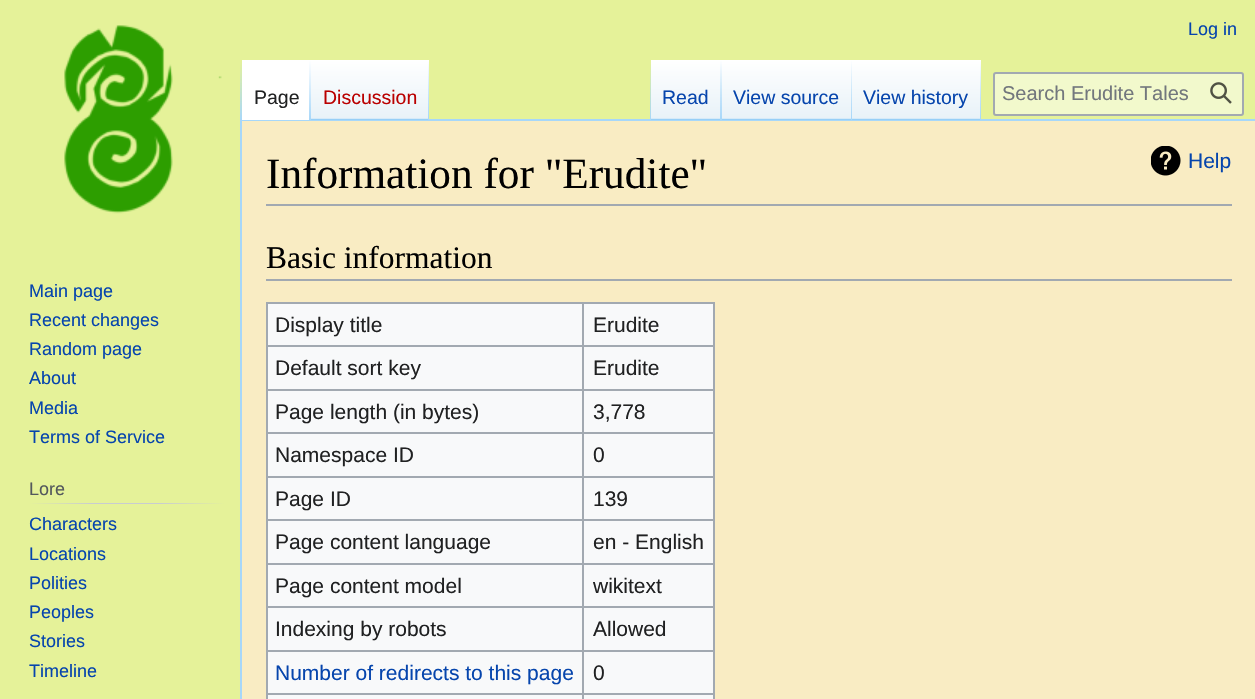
void draw(SkCanvas* canvas) {
	SkPaint paint;
	paint.setAntiAlias(true);
	canvas->clear(0xffe5f299);
	SkFont f1(fontMgr->matchFamilyStyle("Liberation Sans", SkFontStyle::Normal()), 18);
	f1.setSubpixel(true);
	paint.setColor(0xff0645ad);
	canvas->drawString("Log in", 1188, 35, f1, paint);
	paint.setColor(0xffa7d7f9);
	canvas->drawRect(SkRect::MakeXYWH(240, 119, 1015, 2), paint);
	canvas->drawRect(SkRect::MakeXYWH(240, 119, 2, 580), paint);
	{
		const SkColor colors[] = {0x00a7d7f9, 0xffa7d7f9};
		const float stops[] = {0, 1};
		const SkPoint ends[] = {{241, 60}, {241, 120}};
		paint.setShader(SkGradientShader::MakeLinear(ends, colors, stops, 2, SkTileMode::kClamp));
		paint.setAlpha(255);
	}
	canvas->drawRect(SkRect::MakeXYWH(240, 60, 2, 60), paint);
	paint.setShader(nullptr);
	paint.setColor(0xffffffff);
	canvas->drawRect(SkRect::MakeXYWH(242, 60, 67, 60), paint);
	{
		const SkColor colors[] = {0xffffffff, 0xffa7d7f9};
		const float stops[] = {0, 1};
		const SkPoint ends[] = {{310, 60}, {310, 120}};
		paint.setShader(SkGradientShader::MakeLinear(ends, colors, stops, 2, SkTileMode::kClamp));
		paint.setAlpha(255);
	}
	canvas->drawRect(SkRect::MakeXYWH(309, 60, 2, 60), paint);
	SkFont f2(fontMgr->matchFamilyStyle("Liberation Sans", SkFontStyle::Normal()), 19.5);
	f2.setSubpixel(true);
	paint.setShader(nullptr);
	paint.setColor(0xff202122);
	canvas->drawString("Page", 254, 104, f2, paint);
	{
		const SkColor colors[] = {0xff77c1f6, 0xffe8f2f8, 0xffffffff};
		const float stops[] = {0, 0.03, 1};
		const SkPoint ends[] = {{370, 120}, {370, 60}};
		paint.setShader(SkGradientShader::MakeLinear(ends, colors, stops, 3, SkTileMode::kClamp));
		paint.setAlpha(255);
	}
	canvas->drawRect(SkRect::MakeXYWH(311, 60, 118, 60), paint);
	{
		const SkColor colors[] = {0x00a7d7f9, 0xffa7d7f9};
		const float stops[] = {0, 1};
		const SkPoint ends[] = {{428, 60}, {428, 120}};
		paint.setShader(SkGradientShader::MakeLinear(ends, colors, stops, 2, SkTileMode::kClamp));
		paint.setAlpha(255);
	}
	canvas->drawRect(SkRect::MakeXYWH(428, 60, 1, 60), paint);
	paint.setShader(nullptr);
	paint.setColor(0xffba0000);
	canvas->drawString("Discussion", 323, 104, f2, paint);
	{
		const SkColor colors[] = {0x00a7d7f9, 0xffa7d7f9};
		const float stops[] = {0, 1};
		const SkPoint ends[] = {{650, 60}, {650, 120}};
		paint.setShader(SkGradientShader::MakeLinear(ends, colors, stops, 2, SkTileMode::kClamp));
		paint.setAlpha(255);
	}
	canvas->drawRect(SkRect::MakeXYWH(650, 60, 1, 60), paint);
	{
		const SkColor colors[] = {0xff77c1f6, 0xffe8f2f8, 0xffffffff};
		const float stops[] = {0, 0.03, 1};
		const SkPoint ends[] = {{686, 120}, {686, 60}};
		paint.setShader(SkGradientShader::MakeLinear(ends, colors, stops, 3, SkTileMode::kClamp));
		paint.setAlpha(255);
	}
	canvas->drawRect(SkRect::MakeXYWH(651, 60, 71, 60), paint);
	{
		const SkColor colors[] = {0x00a7d7f9, 0xffa7d7f9};
		const float stops[] = {0, 1};
		const SkPoint ends[] = {{721, 60}, {721, 120}};
		paint.setShader(SkGradientShader::MakeLinear(ends, colors, stops, 2, SkTileMode::kClamp));
		paint.setAlpha(255);
	}
	canvas->drawRect(SkRect::MakeXYWH(720, 60, 2, 60), paint);
	paint.setShader(nullptr);
	paint.setColor(0xff0645ad);
	canvas->drawString("Read", 662, 104, f2, paint);
	{
		const SkColor colors[] = {0xff77c1f6, 0xffe8f2f8, 0xffffffff};
		const float stops[] = {0, 0.03, 1};
		const SkPoint ends[] = {{787, 120}, {787, 60}};
		paint.setShader(SkGradientShader::MakeLinear(ends, colors, stops, 3, SkTileMode::kClamp));
		paint.setAlpha(255);
	}
	canvas->drawRect(SkRect::MakeXYWH(722, 60, 130, 60), paint);
	{
		const SkColor colors[] = {0x00a7d7f9, 0xffa7d7f9};
		const float stops[] = {0, 1};
		const SkPoint ends[] = {{851, 60}, {851, 120}};
		paint.setShader(SkGradientShader::MakeLinear(ends, colors, stops, 2, SkTileMode::kClamp));
		paint.setAlpha(255);
	}
	canvas->drawRect(SkRect::MakeXYWH(851, 60, 1, 60), paint);
	paint.setShader(nullptr);
	paint.setColor(0xff0645ad);
	canvas->drawString("View source", 733, 104, f2, paint);
	{
		const SkColor colors[] = {0xff77c1f6, 0xffe8f2f8, 0xffffffff};
		const float stops[] = {0, 0.03, 1};
		const SkPoint ends[] = {{917, 120}, {917, 60}};
		paint.setShader(SkGradientShader::MakeLinear(ends, colors, stops, 3, SkTileMode::kClamp));
		paint.setAlpha(255);
	}
	canvas->drawRect(SkRect::MakeXYWH(852, 60, 129, 60), paint);
	{
		const SkColor colors[] = {0x00a7d7f9, 0xffa7d7f9};
		const float stops[] = {0, 1};
		const SkPoint ends[] = {{980, 60}, {980, 120}};
		paint.setShader(SkGradientShader::MakeLinear(ends, colors, stops, 2, SkTileMode::kClamp));
		paint.setAlpha(255);
	}
	canvas->drawRect(SkRect::MakeXYWH(980, 60, 1, 60), paint);
	paint.setShader(nullptr);
	paint.setColor(0xff0645ad);
	canvas->drawString("View history", 863, 104, f2, paint);
	paint.setColor(0xfff2f9cc);
	canvas->drawRoundRect(SkRect::MakeXYWH(994, 73, 249, 42), 2, 2, paint);
	paint.setStroke(true);
	paint.setStrokeWidth(2);
	paint.setColor(0xffa2a9b1);
	canvas->drawRoundRect(SkRect::MakeXYWH(994, 73, 249, 42), 2, 2, paint);
	SkFont f3(fontMgr->matchFamilyStyle("Liberation Sans", SkFontStyle::Normal()), 20);
	f3.setSubpixel(true);
	paint.setStroke(false);
	paint.setColor(0xff72777d);
	canvas->drawString("Search Erudite Tales", 1002, 100, f3, paint);
	canvas->drawImageRect(SkImages::DeferredFromEncodedData(SkData::MakeFromFileName("img1.png")), SkRect::MakeXYWH(1210, 82, 22, 22), SkSamplingOptions());
	canvas->drawImageRect(SkImages::DeferredFromEncodedData(SkData::MakeFromFileName("img2.png")), SkRect::MakeXYWH(64, 25, 158, 189), SkSamplingOptions());
	paint.setColor(0xff0645ad);
	canvas->drawString("Main page", 29, 297, f1, paint);
	canvas->drawString("Recent changes", 29, 326, f1, paint);
	canvas->drawString("Random page", 29, 355, f1, paint);
	canvas->drawString("About", 29, 384, f1, paint);
	canvas->drawString("Media", 29, 414, f1, paint);
	canvas->drawString("Terms of Service", 29, 443, f1, paint);
	{
		const SkColor colors[] = {0xffe5f299, 0xffc8ccd1, 0xffc8ccd1, 0xffe5f299};
		const float stops[] = {0, 0.33, 0.66, 1};
		const SkPoint ends[] = {{29, 503}, {225, 503}};
		paint.setShader(SkGradientShader::MakeLinear(ends, colors, stops, 4, SkTileMode::kClamp));
		paint.setAlpha(255);
	}
	canvas->drawRect(SkRect::MakeXYWH(29, 503, 196, 1), paint);
	paint.setShader(nullptr);
	paint.setColor(0xff54595d);
	canvas->drawString("Lore", 29, 495, f1, paint);
	paint.setColor(0xff0645ad);
	canvas->drawString("Characters", 29, 530, f1, paint);
	canvas->drawString("Locations", 29, 560, f1, paint);
	canvas->drawString("Polities", 29, 589, f1, paint);
	canvas->drawString("Peoples", 29, 618, f1, paint);
	canvas->drawString("Stories", 29, 647, f1, paint);
	canvas->drawString("Timeline", 29, 677, f1, paint);
	paint.setColor(0xfff9ecc3);
	canvas->drawRect(SkRect::MakeXYWH(242, 121, 1013, 578), paint);
	paint.setColor(0xffa2a9b1);
	canvas->drawRect(SkRect::MakeXYWH(266, 204, 966, 2), paint);
	SkFont f4(fontMgr->matchFamilyStyle("Liberation Serif", SkFontStyle::Normal()), 43.25);
	f4.setSubpixel(true);
	paint.setColor(0xff000000);
	canvas->drawString("Information for \"Erudite\"", 266, 188, f4, paint);
	canvas->drawImageRect(SkImages::DeferredFromEncodedData(SkData::MakeFromFileName("img3.png")), SkRect::MakeXYWH(1151, 146, 30, 30), SkSamplingOptions());
	SkFont f5(fontMgr->matchFamilyStyle("Liberation Sans", SkFontStyle::Normal()), 21);
	f5.setSubpixel(true);
	paint.setColor(0xff0645ad);
	canvas->drawString("Help", 1188, 168, f5, paint);
	paint.setColor(0xffa2a9b1);
	canvas->drawRect(SkRect::MakeXYWH(266, 279, 966, 2), paint);
	SkFont f6(fontMgr->matchFamilyStyle("Liberation Serif", SkFontStyle::Normal()), 31.5);
	f6.setSubpixel(true);
	paint.setColor(0xff000000);
	canvas->drawString("Basic information", 266, 268, f6, paint);
	paint.setColor(0xfff8f9fa);
	canvas->drawRect(SkRect::MakeXYWH(268, 304, 445, 395), paint);
	paint.setColor(0xffa2a9b1);
	canvas->drawRect(SkRect::MakeXYWH(266, 302, 448, 2), paint);
	canvas->drawRect(SkRect::MakeXYWH(713, 302, 2, 397), paint);
	canvas->drawRect(SkRect::MakeXYWH(266, 302, 2, 397), paint);
	paint.setColor(0xff202122);
	canvas->drawString("Display title", 275, 332, f5, paint);
	paint.setColor(0xffa2a9b1);
	canvas->drawRect(SkRect::MakeXYWH(582, 345, 132, 2), paint);
	canvas->drawRect(SkRect::MakeXYWH(582, 389, 132, 2), paint);
	canvas->drawRect(SkRect::MakeXYWH(582, 432, 132, 2), paint);
	canvas->drawRect(SkRect::MakeXYWH(582, 476, 132, 2), paint);
	canvas->drawRect(SkRect::MakeXYWH(582, 519, 132, 2), paint);
	canvas->drawRect(SkRect::MakeXYWH(582, 563, 132, 2), paint);
	canvas->drawRect(SkRect::MakeXYWH(582, 606, 132, 2), paint);
	canvas->drawRect(SkRect::MakeXYWH(582, 650, 132, 2), paint);
	canvas->drawRect(SkRect::MakeXYWH(582, 693, 132, 2), paint);
	canvas->drawRect(SkRect::MakeXYWH(582, 693, 2, 6), paint);
	canvas->drawRect(SkRect::MakeXYWH(266, 693, 318, 2), paint);
	canvas->drawRect(SkRect::MakeXYWH(582, 650, 2, 45), paint);
	canvas->drawRect(SkRect::MakeXYWH(266, 650, 318, 2), paint);
	canvas->drawRect(SkRect::MakeXYWH(582, 606, 2, 45), paint);
	canvas->drawRect(SkRect::MakeXYWH(266, 606, 318, 2), paint);
	canvas->drawRect(SkRect::MakeXYWH(582, 563, 2, 45), paint);
	canvas->drawRect(SkRect::MakeXYWH(266, 563, 318, 2), paint);
	canvas->drawRect(SkRect::MakeXYWH(582, 519, 2, 45), paint);
	canvas->drawRect(SkRect::MakeXYWH(266, 519, 318, 2), paint);
	canvas->drawRect(SkRect::MakeXYWH(582, 476, 2, 45), paint);
	canvas->drawRect(SkRect::MakeXYWH(266, 476, 318, 2), paint);
	canvas->drawRect(SkRect::MakeXYWH(582, 432, 2, 45), paint);
	canvas->drawRect(SkRect::MakeXYWH(266, 432, 318, 2), paint);
	canvas->drawRect(SkRect::MakeXYWH(582, 389, 2, 45), paint);
	canvas->drawRect(SkRect::MakeXYWH(266, 389, 318, 2), paint);
	canvas->drawRect(SkRect::MakeXYWH(582, 345, 2, 45), paint);
	canvas->drawRect(SkRect::MakeXYWH(266, 345, 318, 2), paint);
	canvas->drawRect(SkRect::MakeXYWH(582, 302, 2, 45), paint);
	paint.setColor(0xff202122);
	canvas->drawString("Erudite", 593, 332, f5, paint);
	canvas->drawString("Default sort key", 275, 375, f5, paint);
	canvas->drawString("Erudite", 593, 375, f5, paint);
	canvas->drawString("Page length (in bytes)", 275, 419, f5, paint);
	canvas->drawString("3,778", 593, 419, f5, paint);
	canvas->drawString("Namespace ID", 275, 462, f5, paint);
	canvas->drawString("0", 593, 462, f5, paint);
	canvas->drawString("Page ID", 275, 506, f5, paint);
	canvas->drawString("139", 593, 506, f5, paint);
	canvas->drawString("Page content language", 275, 549, f5, paint);
	canvas->drawString("en - English", 593, 549, f5, paint);
	canvas->drawString("Page content model", 275, 593, f5, paint);
	canvas->drawString("wikitext", 593, 593, f5, paint);
	canvas->drawString("Indexing by robots", 275, 636, f5, paint);
	canvas->drawString("Allowed", 593, 636, f5, paint);
	paint.setColor(0xff0645ad);
	canvas->drawString("Number of redirects to this page", 275, 680, f5, paint);
	paint.setColor(0xff202122);
	canvas->drawString("0", 593, 680, f5, paint);
}
